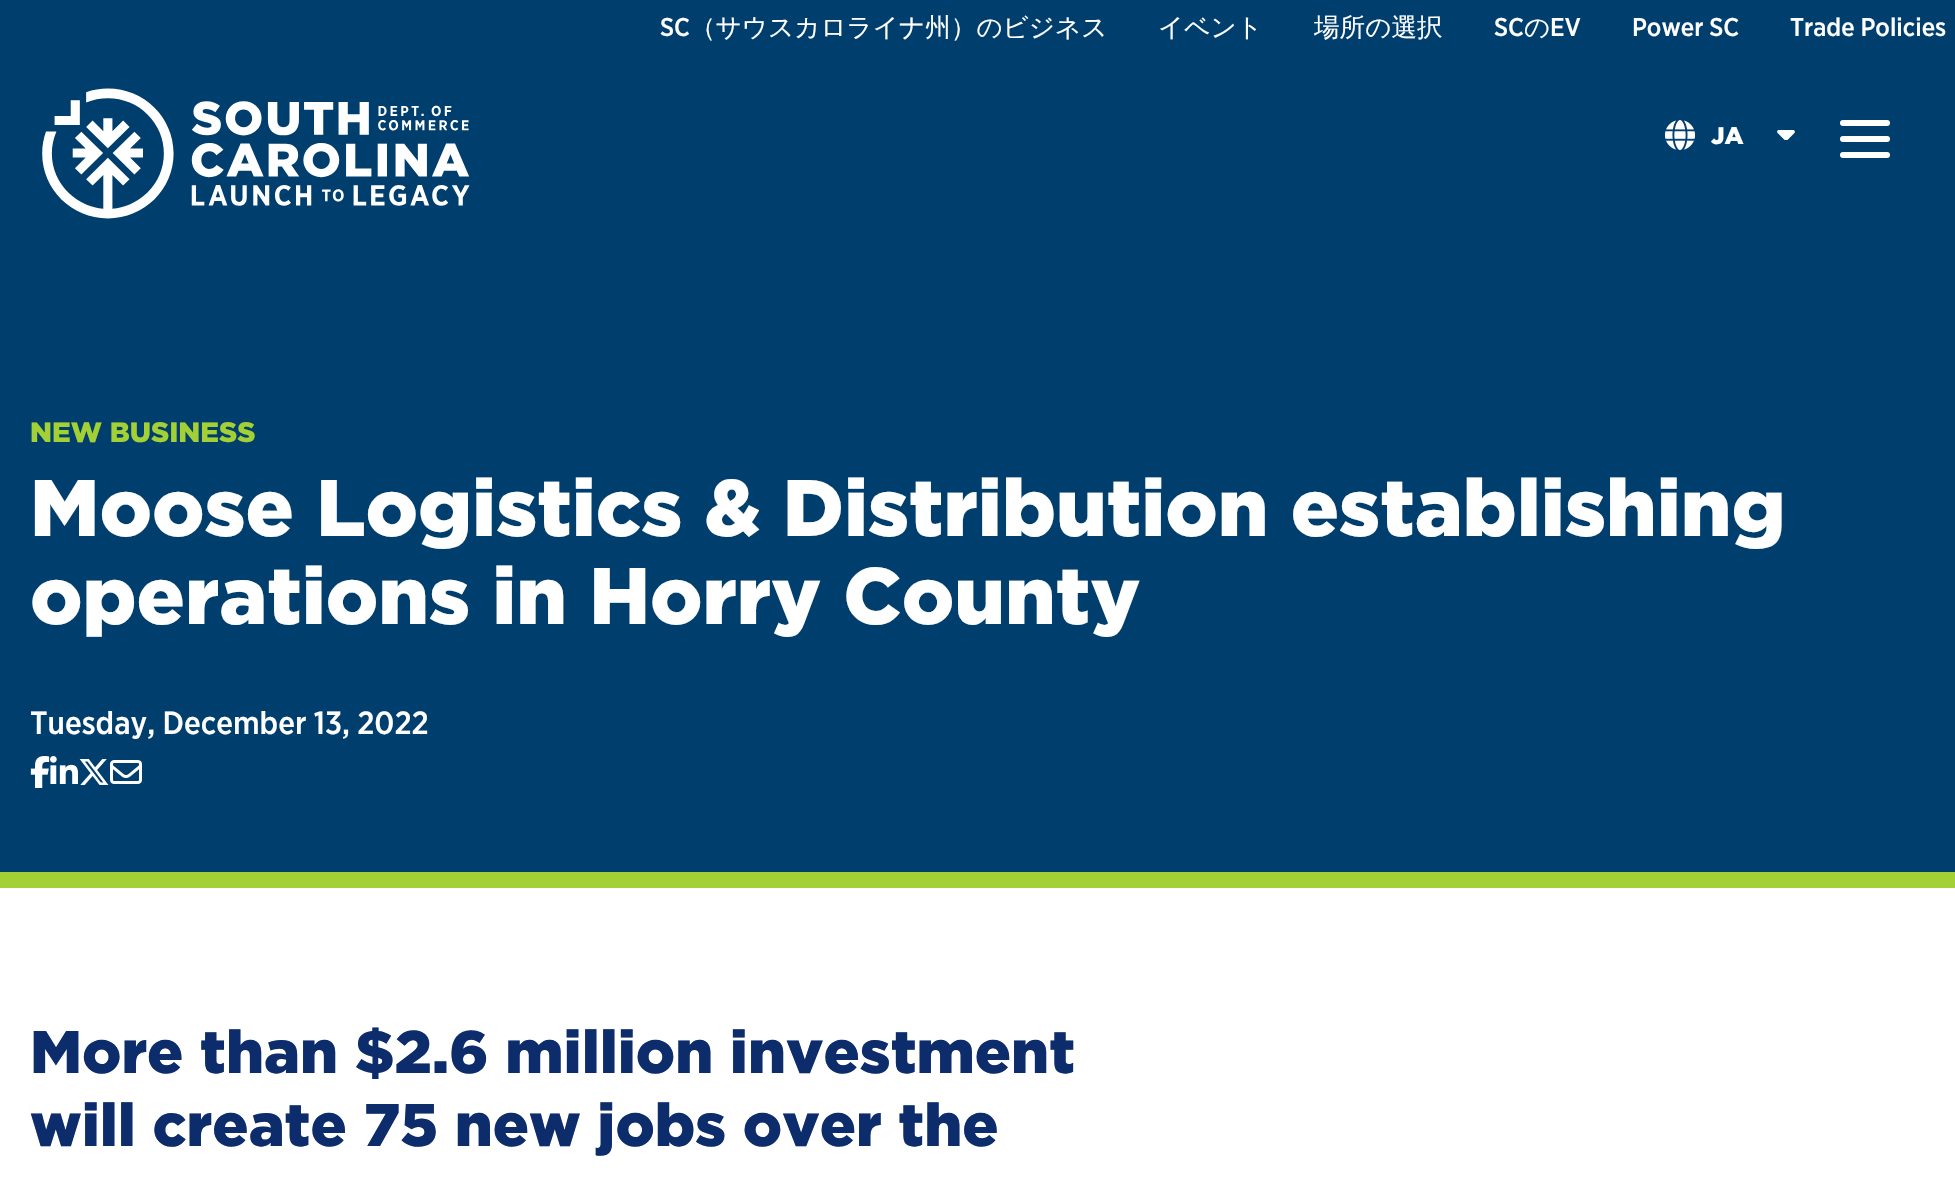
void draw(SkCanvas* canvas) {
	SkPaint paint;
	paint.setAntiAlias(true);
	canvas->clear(0xffffffff);
	paint.setColor(0xff003e6e);
	canvas->drawRect(SkRect::MakeXYWH(0, 0, 1955, 872), paint);
	SkFont f1(fontMgr->matchFamilyStyle("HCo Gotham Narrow", SkFontStyle(500, SkFontStyle::kNormal_Width, SkFontStyle::kUpright_Slant)), 25.6);
	f1.setSubpixel(true);
	paint.setColor(0xffffffff);
	canvas->drawString("SC", 660, 36, f1, paint);
	SkFont f2(fontMgr->matchFamilyStyle("WenQuanYi Zen Hei", SkFontStyle(500, SkFontStyle::kNormal_Width, SkFontStyle::kUpright_Slant)), 25.6);
	f2.setSubpixel(true);
	canvas->drawString("（サウスカロライナ州）のビジネス", 690, 36, f2, paint);
	canvas->drawString("イベント", 1158, 36, f2, paint);
	canvas->drawString("場所の選択", 1314, 36, f2, paint);
	canvas->drawString("SC", 1494, 36, f1, paint);
	canvas->drawString("の", 1524, 36, f2, paint);
	canvas->drawString("EV", 1550, 36, f1, paint);
	canvas->drawString("Power SC", 1632, 36, f1, paint);
	canvas->drawString("Trade Policies", 1790, 36, f1, paint);
	canvas->drawImageRect(SkImages::DeferredFromEncodedData(SkData::MakeFromFileName("img1.png")), SkRect::MakeXYWH(42, 88, 428, 131), SkSamplingOptions());
	canvas->drawImageRect(SkImages::DeferredFromEncodedData(SkData::MakeFromFileName("img2.png")), SkRect::MakeXYWH(1665, 120, 30, 30), SkSamplingOptions());
	SkFont f3(fontMgr->matchFamilyStyle("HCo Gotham", SkFontStyle(900, SkFontStyle::kNormal_Width, SkFontStyle::kUpright_Slant)), 24);
	f3.setSubpixel(true);
	canvas->drawString("JA", 1711, 144, f3, paint);
	canvas->drawImageRect(SkImages::DeferredFromEncodedData(SkData::MakeFromFileName("img3.png")), SkRect::MakeXYWH(1777, 130, 18, 10), SkSamplingOptions());
	canvas->drawRoundRect(SkRect::MakeXYWH(1840, 120, 50, 6), 3, 3, paint);
	canvas->drawRoundRect(SkRect::MakeXYWH(1840, 136, 50, 6), 3, 3, paint);
	canvas->drawRoundRect(SkRect::MakeXYWH(1840, 152, 50, 6), 3, 3, paint);
	SkFont f4(fontMgr->matchFamilyStyle("HCo Gotham", SkFontStyle(900, SkFontStyle::kNormal_Width, SkFontStyle::kUpright_Slant)), 28);
	f4.setSubpixel(true);
	paint.setColor(0xffa2d035);
	canvas->drawString("NEW BUSINESS", 30, 442, f4, paint);
	SkFont f5(fontMgr->matchFamilyStyle("HCo Gotham", SkFontStyle(900, SkFontStyle::kNormal_Width, SkFontStyle::kUpright_Slant)), 80);
	f5.setSubpixel(true);
	paint.setColor(0xffffffff);
	canvas->drawString("Moose Logistics & Distribution establishing", 30, 536, f5, paint);
	canvas->drawString("operations in Horry County", 30, 624, f5, paint);
	SkFont f6(fontMgr->matchFamilyStyle("HCo Gotham Narrow", SkFontStyle(500, SkFontStyle::kNormal_Width, SkFontStyle::kUpright_Slant)), 32);
	f6.setSubpixel(true);
	canvas->drawString("Tuesday, December 13, 2022", 30, 734, f6, paint);
	canvas->drawImageRect(SkImages::DeferredFromEncodedData(SkData::MakeFromFileName("img4.png")), SkRect::MakeXYWH(30, 756, 20, 32), SkSamplingOptions());
	canvas->drawImageRect(SkImages::DeferredFromEncodedData(SkData::MakeFromFileName("img5.png")), SkRect::MakeXYWH(50, 756, 28, 28), SkSamplingOptions());
	canvas->drawImageRect(SkImages::DeferredFromEncodedData(SkData::MakeFromFileName("img6.png")), SkRect::MakeXYWH(79, 759, 30, 26), SkSamplingOptions());
	canvas->drawImageRect(SkImages::DeferredFromEncodedData(SkData::MakeFromFileName("img7.png")), SkRect::MakeXYWH(110, 760, 32, 24), SkSamplingOptions());
	paint.setColor(0xffa2d035);
	canvas->drawRect(SkRect::MakeXYWH(0, 872, 1955, 16), paint);
	SkFont f7(fontMgr->matchFamilyStyle("HCo Gotham", SkFontStyle(900, SkFontStyle::kNormal_Width, SkFontStyle::kUpright_Slant)), 60);
	f7.setSubpixel(true);
	paint.setColor(0xff0d2c6c);
	canvas->drawString("More than $2.6 million investment", 30, 1073, f7, paint);
	canvas->drawString("will create 75 new jobs over the", 30, 1146, f7, paint);
}
